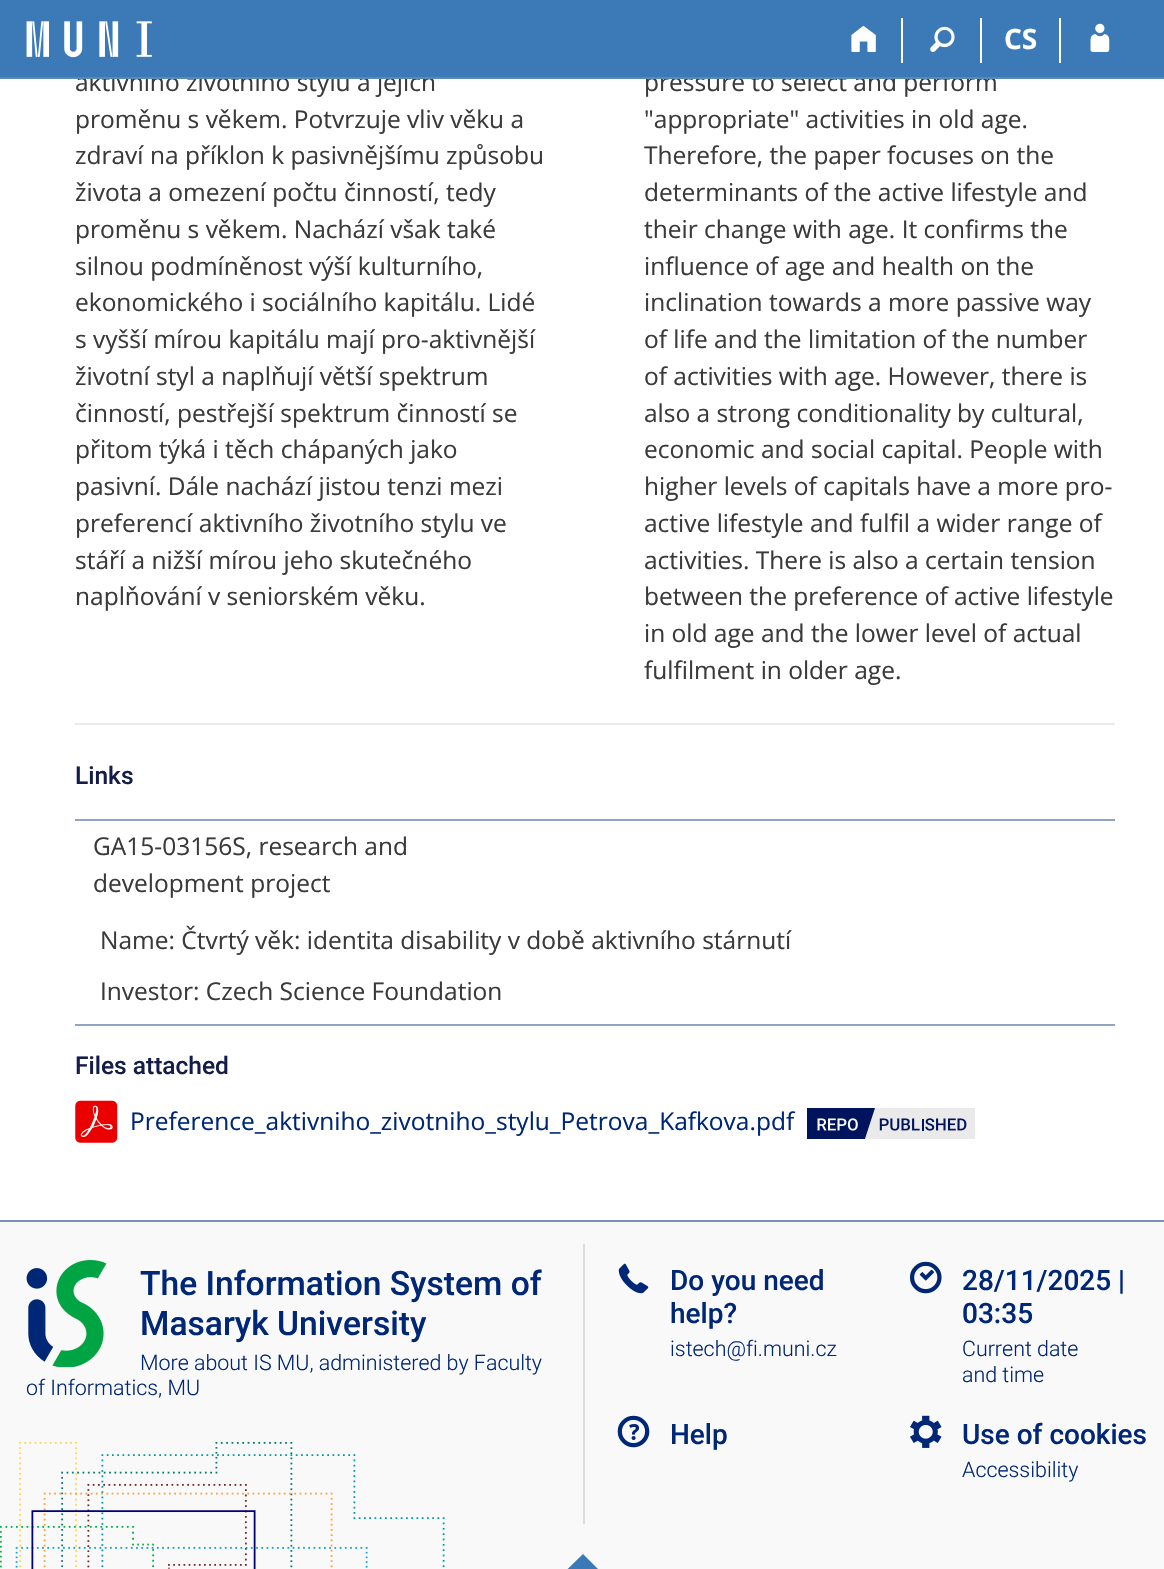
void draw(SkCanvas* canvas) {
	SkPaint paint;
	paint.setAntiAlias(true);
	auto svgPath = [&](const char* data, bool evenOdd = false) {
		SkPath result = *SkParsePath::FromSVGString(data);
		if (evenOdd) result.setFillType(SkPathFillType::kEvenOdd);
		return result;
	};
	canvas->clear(0xffffffff);
	SkFont f1(fontMgr->matchFamilyStyle("Open Sans", SkFontStyle::Normal()), 24.5);
	f1.setSubpixel(true);
	paint.setColor(0xff3a3a3a);
	canvas->drawString("aktivního životního stylu a jejich", 75, 91, f1, paint);
	canvas->drawString("pressure to select and perform", 644, 91, f1, paint);
	paint.setColor(0xff3c7ab7);
	canvas->drawRect(SkRect::MakeXYWH(0, 0, 1164, 77), paint);
	paint.setColor(0xff5c88b6);
	canvas->drawRect(SkRect::MakeXYWH(0, 77, 1164, 2), paint);
	canvas->drawImageRect(SkImages::DeferredFromEncodedData(SkData::MakeFromFileName("img1.png")), SkRect::MakeXYWH(26, 21, 126, 37), SkSamplingOptions());
	paint.setColor(0xffffffff);
	canvas->drawRect(SkRect::MakeXYWH(901, 18, 2, 45), paint);
	canvas->drawImageRect(SkImages::DeferredFromEncodedData(SkData::MakeFromFileName("img2.png")), SkRect::MakeXYWH(851, 26, 25, 26), SkSamplingOptions());
	canvas->drawRect(SkRect::MakeXYWH(980, 18, 2, 45), paint);
	canvas->drawImageRect(SkImages::DeferredFromEncodedData(SkData::MakeFromFileName("img3.png")), SkRect::MakeXYWH(930, 26, 25, 26), SkSamplingOptions());
	canvas->drawRect(SkRect::MakeXYWH(1059, 18, 2, 45), paint);
	SkFont f2(fontMgr->matchFamilyStyle("Open Sans", SkFontStyle::Bold()), 28);
	f2.setSubpixel(true);
	canvas->drawString("CS", 1004, 49, f2, paint);
	canvas->drawImageRect(SkImages::DeferredFromEncodedData(SkData::MakeFromFileName("img4.png")), SkRect::MakeXYWH(1090, 23, 20, 29), SkSamplingOptions());
	paint.setColor(0xff3a3a3a);
	canvas->drawString("proměnu s věkem. Potvrzuje vliv věku a", 75, 128, f1, paint);
	canvas->drawString("zdraví na příklon k pasivnějšímu způsobu", 75, 164, f1, paint);
	canvas->drawString("života a omezení počtu činností, tedy", 75, 201, f1, paint);
	canvas->drawString("proměnu s věkem. Nachází však také", 75, 238, f1, paint);
	canvas->drawString("silnou podmíněnost výší kulturního,", 75, 275, f1, paint);
	canvas->drawString("ekonomického i sociálního kapitálu. Lidé", 75, 311, f1, paint);
	canvas->drawString("s vyšší mírou kapitálu mají pro-aktivnější", 75, 348, f1, paint);
	canvas->drawString("životní styl a naplňují větší spektrum", 75, 385, f1, paint);
	canvas->drawString("činností, pestřejší spektrum činností se", 75, 422, f1, paint);
	canvas->drawString("přitom týká i těch chápaných jako", 75, 458, f1, paint);
	canvas->drawString("pasivní. Dále nachází jistou tenzi mezi", 75, 495, f1, paint);
	canvas->drawString("preferencí aktivního životního stylu ve", 75, 532, f1, paint);
	canvas->drawString("stáří a nižší mírou jeho skutečného", 75, 569, f1, paint);
	canvas->drawString("naplňování v seniorském věku.", 75, 605, f1, paint);
	canvas->drawString("\"appropriate\" activities in old age.", 644, 128, f1, paint);
	canvas->drawString("Therefore, the paper focuses on the", 644, 164, f1, paint);
	canvas->drawString("determinants of the active lifestyle and", 644, 201, f1, paint);
	canvas->drawString("their change with age. It confirms the", 644, 238, f1, paint);
	canvas->drawString("influence of age and health on the", 644, 275, f1, paint);
	canvas->drawString("inclination towards a more passive way", 644, 311, f1, paint);
	canvas->drawString("of life and the limitation of the number", 644, 348, f1, paint);
	canvas->drawString("of activities with age. However, there is", 644, 385, f1, paint);
	canvas->drawString("also a strong conditionality by cultural,", 644, 422, f1, paint);
	canvas->drawString("economic and social capital. People with", 644, 458, f1, paint);
	canvas->drawString("higher levels of capitals have a more pro-", 644, 495, f1, paint);
	canvas->drawString("active lifestyle and fulfil a wider range of", 644, 532, f1, paint);
	canvas->drawString("activities. There is also a certain tension", 644, 569, f1, paint);
	canvas->drawString("between the preference of active lifestyle", 644, 605, f1, paint);
	canvas->drawString("in old age and the lower level of actual", 644, 642, f1, paint);
	canvas->drawString("fulfilment in older age.", 644, 679, f1, paint);
	paint.setColor(0xffeaeaea);
	canvas->drawRect(SkRect::MakeXYWH(75, 723, 1040, 2), paint);
	SkFont f3(fontMgr->matchFamilyStyle("Roboto", SkFontStyle(500, SkFontStyle::kNormal_Width, SkFontStyle::kUpright_Slant)), 24.5);
	f3.setSubpixel(true);
	paint.setColor(0xff141c4a);
	canvas->drawString("Links", 75, 784, f3, paint);
	paint.setColor(0xff93a3c5);
	canvas->drawRect(SkRect::MakeXYWH(75, 819, 1040, 2), paint);
	canvas->drawRect(SkRect::MakeXYWH(75, 1024, 1040, 2), paint);
	paint.setColor(0xff3a3a3a);
	canvas->drawString("GA15-03156S, research and", 93, 855, f1, paint);
	canvas->drawString("development project", 93, 892, f1, paint);
	canvas->drawString("Name: Čtvrtý věk: identita disability v době aktivního stárnutí", 100, 949, f1, paint);
	canvas->drawString("Investor: Czech Science Foundation", 100, 1000, f1, paint);
	paint.setColor(0xff141c4a);
	canvas->drawString("Files attached", 75, 1074, f3, paint);
	canvas->drawImageRect(SkImages::DeferredFromEncodedData(SkData::MakeFromFileName("img5.png")), SkRect::MakeXYWH(75, 1100, 43, 43), SkSamplingOptions());
	paint.setColor(0xff002776);
	canvas->drawString("Preference_aktivniho_zivotniho_stylu_Petrova_Kafkova.pdf", 130, 1130, f1, paint);
	canvas->drawImageRect(SkImages::DeferredFromEncodedData(SkData::MakeFromFileName("img6.png")), SkRect::MakeXYWH(807, 1108, 168, 31), SkSamplingOptions());
	paint.setColor(0xfff9f9f9);
	canvas->drawRect(SkRect::MakeXYWH(0, 1222, 1164, 347), paint);
	paint.setColor(0xff7d90b8);
	canvas->drawRect(SkRect::MakeXYWH(0, 1220, 1164, 2), paint);
	canvas->drawImageRect(SkImages::DeferredFromEncodedData(SkData::MakeFromFileName("img7.png")), SkRect::MakeXYWH(0, 1441, 445, 128), SkSamplingOptions());
	canvas->drawImageRect(SkImages::DeferredFromEncodedData(SkData::MakeFromFileName("img8.png")), SkRect::MakeXYWH(26, 1260, 81, 107), SkSamplingOptions());
	SkFont f4(fontMgr->matchFamilyStyle("Roboto", SkFontStyle(500, SkFontStyle::kNormal_Width, SkFontStyle::kUpright_Slant)), 33.6);
	f4.setSubpixel(true);
	paint.setColor(0xff002776);
	canvas->drawString("The Information System of", 140, 1295, f4, paint);
	canvas->drawString("Masaryk University", 140, 1335, f4, paint);
	SkFont f5(fontMgr->matchFamilyStyle("Roboto", SkFontStyle(300, SkFontStyle::kNormal_Width, SkFontStyle::kUpright_Slant)), 21.4);
	f5.setSubpixel(true);
	canvas->drawString("More about IS MU, administered by Faculty", 140, 1370, f5, paint);
	canvas->drawString("of Informatics, MU", 26, 1395, f5, paint);
	paint.setColor(0xffdddddd);
	canvas->drawRect(SkRect::MakeXYWH(583, 1244, 2, 280), paint);
	canvas->drawImageRect(SkImages::DeferredFromEncodedData(SkData::MakeFromFileName("img9.png")), SkRect::MakeXYWH(618, 1263, 31, 31), SkSamplingOptions());
	SkFont f6(fontMgr->matchFamilyStyle("Roboto", SkFontStyle(500, SkFontStyle::kNormal_Width, SkFontStyle::kUpright_Slant)), 28);
	f6.setSubpixel(true);
	paint.setColor(0xff002776);
	canvas->drawString("Do you need", 670, 1290, f6, paint);
	canvas->drawString("help?", 670, 1323, f6, paint);
	canvas->drawString("istech@fi.muni.cz", 670, 1356, f5, paint);
	canvas->drawImageRect(SkImages::DeferredFromEncodedData(SkData::MakeFromFileName("img10.png")), SkRect::MakeXYWH(617, 1415, 33, 33), SkSamplingOptions());
	canvas->drawString("Help", 670, 1444, f6, paint);
	canvas->drawImageRect(SkImages::DeferredFromEncodedData(SkData::MakeFromFileName("img11.png")), SkRect::MakeXYWH(910, 1261, 32, 33), SkSamplingOptions());
	canvas->drawString("28/11/2025 |", 962, 1290, f6, paint);
	canvas->drawString("03:35", 962, 1323, f6, paint);
	canvas->drawString("Current date", 962, 1356, f5, paint);
	canvas->drawString("and time", 962, 1382, f5, paint);
	canvas->drawImageRect(SkImages::DeferredFromEncodedData(SkData::MakeFromFileName("img12.png")), SkRect::MakeXYWH(910, 1415, 32, 33), SkSamplingOptions());
	canvas->drawString("Use of cookies", 962, 1444, f6, paint);
	canvas->drawString("Accessibility", 962, 1477, f5, paint);
	paint.setColor(0xff3c7ab7);
	canvas->drawPath(svgPath("M602 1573H563.5L583 1554Z"), paint);
}
